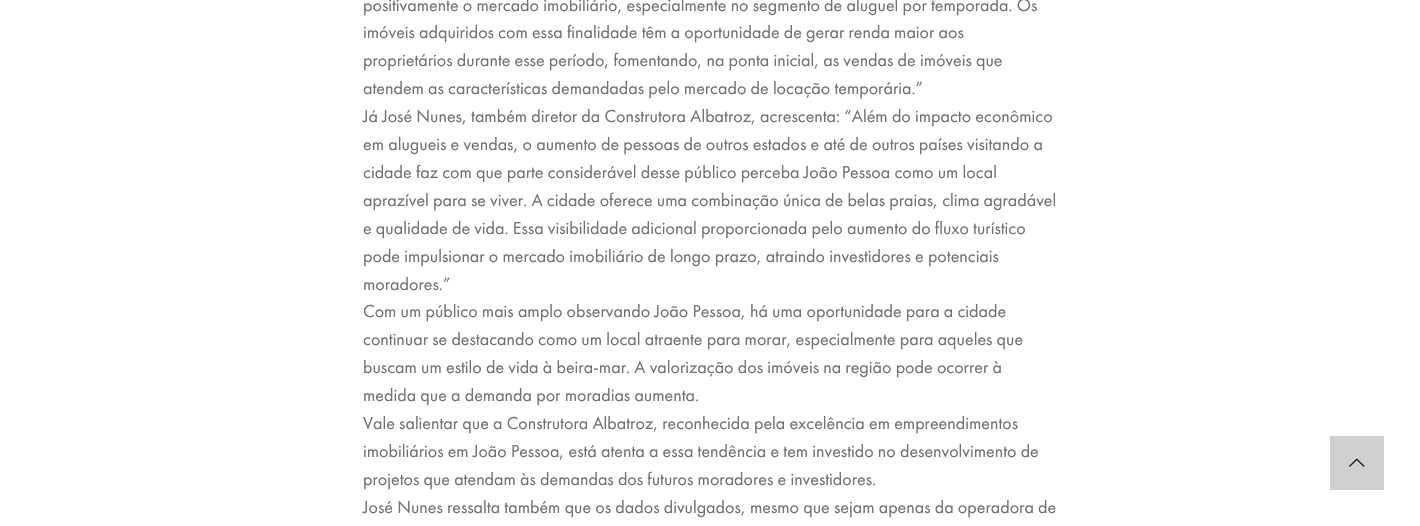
void draw(SkCanvas* canvas) {
	SkPaint paint;
	paint.setAntiAlias(true);
	canvas->clear(0xffffffff);
	SkFont f1(fontMgr->matchFamilyStyle("Futura PT", SkFontStyle::Normal()), 18);
	f1.setSubpixel(true);
	paint.setColor(0xff707070);
	canvas->drawString("positivamente o mercado imobiliário, especialmente no segmento de aluguel por temporada. Os", 363, 11, f1, paint);
	canvas->drawString("imóveis adquiridos com essa finalidade têm a oportunidade de gerar renda maior aos", 363, 38, f1, paint);
	canvas->drawString("proprietários durante esse período, fomentando, na ponta inicial, as vendas de imóveis que", 363, 66, f1, paint);
	canvas->drawString("atendem as características demandadas pelo mercado de locação temporária.”", 363, 94, f1, paint);
	canvas->drawString("Já José Nunes, também diretor da Construtora Albatroz, acrescenta: “Além do impacto econômico", 363, 122, f1, paint);
	canvas->drawString("em alugueis e vendas, o aumento de pessoas de outros estados e até de outros países visitando a", 363, 150, f1, paint);
	canvas->drawString("cidade faz com que parte considerável desse público perceba João Pessoa como um local", 363, 178, f1, paint);
	canvas->drawString("aprazível para se viver. A cidade oferece uma combinação única de belas praias, clima agradável", 363, 206, f1, paint);
	canvas->drawString("e qualidade de vida. Essa visibilidade adicional proporcionada pelo aumento do fluxo turístico", 363, 234, f1, paint);
	canvas->drawString("pode impulsionar o mercado imobiliário de longo prazo, atraindo investidores e potenciais", 363, 262, f1, paint);
	canvas->drawString("moradores.”", 363, 290, f1, paint);
	canvas->drawString("Com um público mais amplo observando João Pessoa, há uma oportunidade para a cidade", 363, 317, f1, paint);
	canvas->drawString("continuar se destacando como um local atraente para morar, especialmente para aqueles que", 363, 345, f1, paint);
	canvas->drawString("buscam um estilo de vida à beira-mar. A valorização dos imóveis na região pode ocorrer à", 363, 373, f1, paint);
	canvas->drawString("medida que a demanda por moradias aumenta.", 363, 401, f1, paint);
	canvas->drawString("Vale salientar que a Construtora Albatroz, reconhecida pela excelência em empreendimentos", 363, 429, f1, paint);
	canvas->drawString("imobiliários em João Pessoa, está atenta a essa tendência e tem investido no desenvolvimento de", 363, 457, f1, paint);
	canvas->drawString("projetos que atendam às demandas dos futuros moradores e investidores.", 363, 485, f1, paint);
	canvas->drawString("José Nunes ressalta também que os dados divulgados, mesmo que sejam apenas da operadora de", 363, 513, f1, paint);
	paint.setColor(0xffd0d0d0);
	canvas->drawRect(SkRect::MakeXYWH(1330, 436, 54, 54), paint);
	canvas->drawImageRect(SkImages::DeferredFromEncodedData(SkData::MakeFromFileName("img1.png")), SkRect::MakeXYWH(1349, 458, 16, 9), SkSamplingOptions());
}
